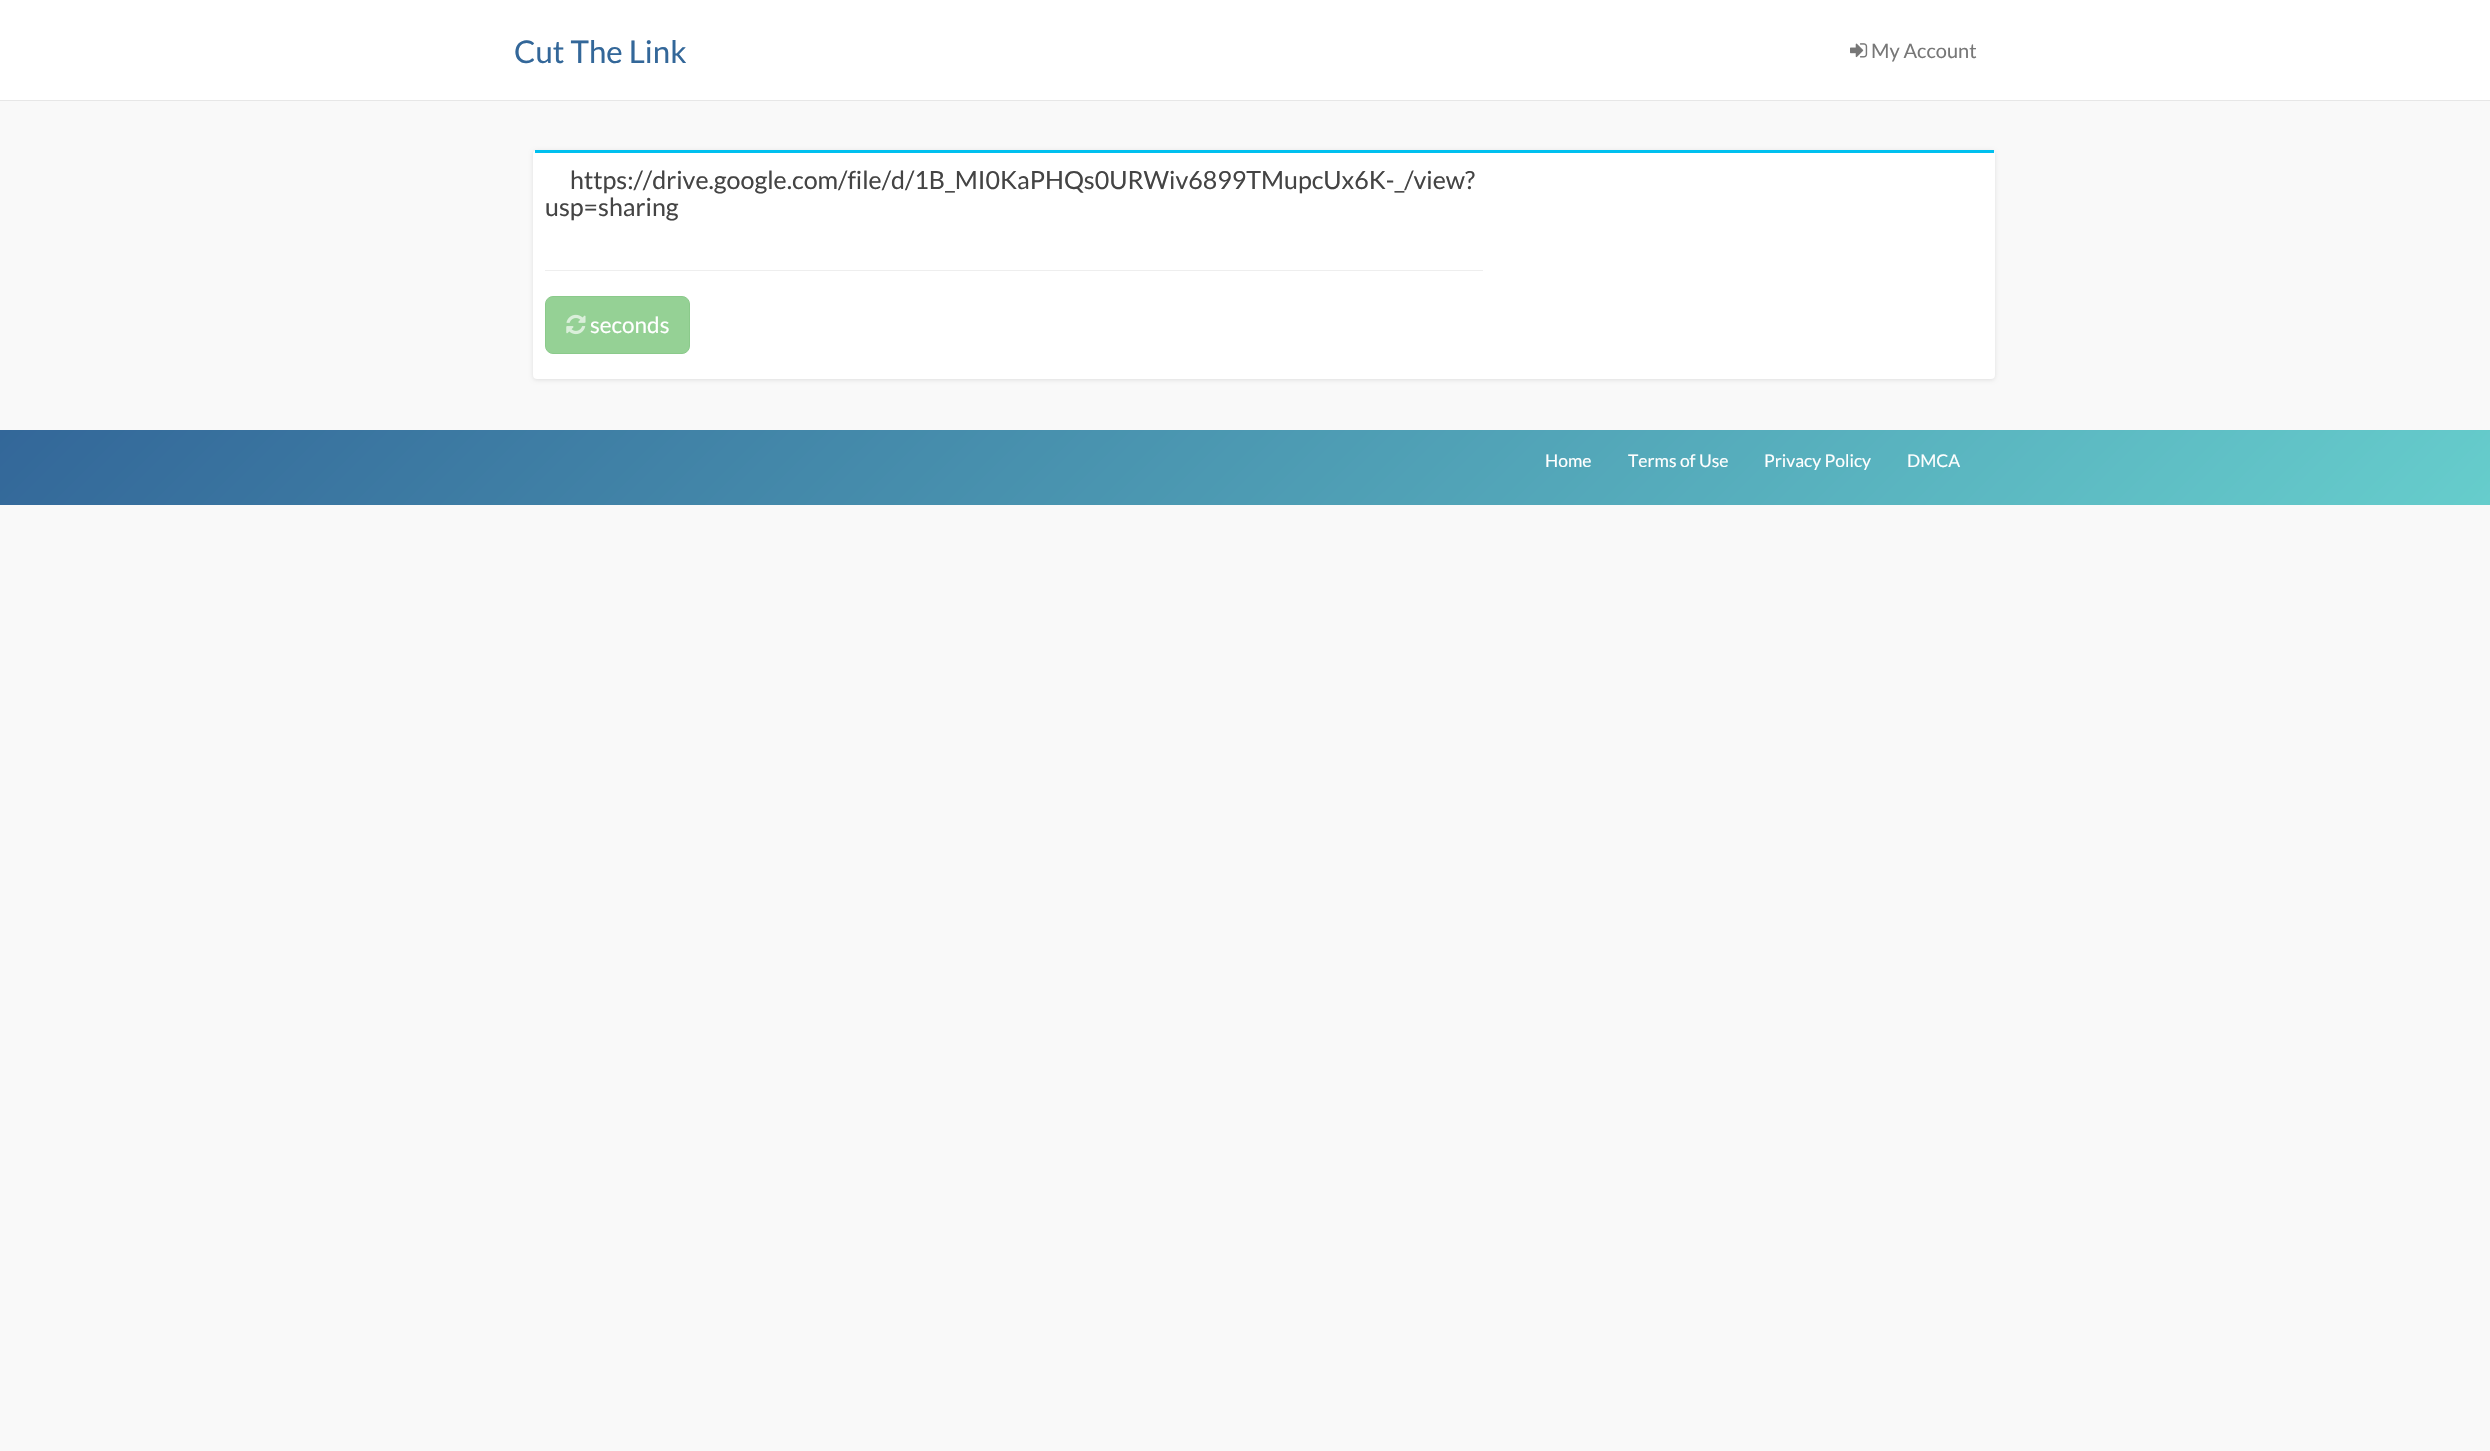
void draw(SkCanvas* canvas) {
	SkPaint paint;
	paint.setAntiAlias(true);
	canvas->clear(0xfff9f9f9);
	paint.setColor(0xffffffff);
	canvas->drawRect(SkRect::MakeXYWH(0, 0, 2490, 100), paint);
	paint.setColor(0xffe7e7e7);
	canvas->drawRect(SkRect::MakeXYWH(0, 100, 2490, 1), paint);
	SkFont f1(fontMgr->matchFamilyStyle("Lato", SkFontStyle::Normal()), 31.25);
	f1.setSubpixel(true);
	paint.setColor(0xff336799);
	canvas->drawString("Cut The Link", 514, 63, f1, paint);
	canvas->drawImageRect(SkImages::DeferredFromEncodedData(SkData::MakeFromFileName("img1.png")), SkRect::MakeXYWH(1850, 43, 18, 15), SkSamplingOptions());
	SkFont f2(fontMgr->matchFamilyStyle("Lato", SkFontStyle::Normal()), 20);
	f2.setSubpixel(true);
	paint.setColor(0xff777777);
	canvas->drawString("My Account", 1871, 58, f2, paint);
	paint.setColor(0x1a000000);
	paint.setMaskFilter(SkMaskFilter::MakeBlur(kNormal_SkBlurStyle, 2));
	canvas->drawRoundRect(SkRect::MakeXYWH(533, 151, 1462, 229), 4, 4, paint);
	paint.setMaskFilter(nullptr);
	paint.setColor(0xffffffff);
	canvas->drawRoundRect(SkRect::MakeXYWH(533, 150, 1462, 229), 4, 4, paint);
	paint.setColor(0xff00c0ef);
	canvas->drawRect(SkRect::MakeXYWH(535, 150, 1459, 3), paint);
	SkFont f3(fontMgr->matchFamilyStyle("Lato", SkFontStyle::Normal()), 25);
	f3.setSubpixel(true);
	paint.setColor(0xff444444);
	canvas->drawString("https://drive.google.com/file/d/1B_MI0KaPHQs0URWiv6899TMupcUx6K-_/view?", 570, 189, f3, paint);
	canvas->drawString("usp=sharing", 545, 216, f3, paint);
	paint.setColor(0xffeeeeee);
	canvas->drawRect(SkRect::MakeXYWH(545, 270, 938, 1), paint);
	paint.setColor(0xff95d195);
	canvas->drawRoundRect(SkRect::MakeXYWH(545.5, 296.5, 144, 57), 7.5, 7.5, paint);
	paint.setStroke(true);
	paint.setStrokeWidth(1);
	paint.setColor(0xff8bca8b);
	canvas->drawRoundRect(SkRect::MakeXYWH(545.5, 296.5, 144, 57), 7.5, 7.5, paint);
	canvas->drawImageRect(SkImages::DeferredFromEncodedData(SkData::MakeFromFileName("img2.png")), SkRect::MakeXYWH(566, 314, 20, 21), SkSamplingOptions());
	SkFont f4(fontMgr->matchFamilyStyle("Lato", SkFontStyle::Normal()), 22.5);
	f4.setSubpixel(true);
	paint.setStroke(false);
	paint.setColor(0xffffffff);
	canvas->drawString("seconds", 590, 333, f4, paint);
	{
		const SkColor colors[] = {0xff66cdcc, 0xff336799};
		const float stops[] = {0, 1};
		const SkPoint ends[] = {{1886, 1109}, {604, -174}};
		paint.setShader(SkGradientShader::MakeLinear(ends, colors, stops, 2, SkTileMode::kClamp));
		paint.setAlpha(255);
	}
	canvas->drawRect(SkRect::MakeXYWH(0, 430, 2490, 75), paint);
	SkFont f5(fontMgr->matchFamilyStyle("Lato", SkFontStyle::Normal()), 17.5);
	f5.setSubpixel(true);
	paint.setShader(nullptr);
	paint.setColor(0xffffffff);
	canvas->drawString("Home", 1545, 467, f5, paint);
	canvas->drawString("Terms of Use", 1628, 467, f5, paint);
	canvas->drawString("Privacy Policy", 1764, 467, f5, paint);
	canvas->drawString("DMCA", 1907, 467, f5, paint);
}
